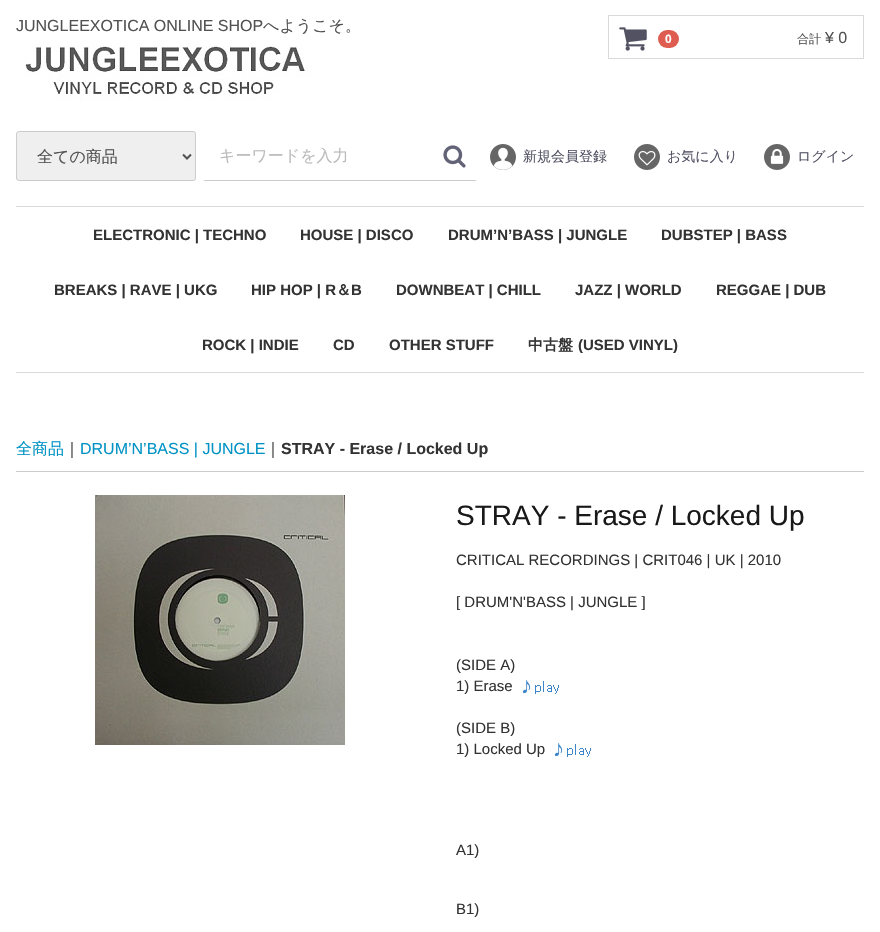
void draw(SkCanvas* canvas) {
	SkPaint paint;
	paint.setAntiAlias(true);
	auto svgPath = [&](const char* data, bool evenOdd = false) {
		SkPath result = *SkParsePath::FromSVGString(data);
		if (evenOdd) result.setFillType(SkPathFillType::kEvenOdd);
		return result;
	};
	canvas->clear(0xffffffff);
	SkFont f1(fontMgr->matchFamilyStyle("Liberation Sans", SkFontStyle::Normal()), 16);
	f1.setSubpixel(true);
	paint.setColor(0xff515151);
	canvas->drawString("JUNGLEEXOTICA ONLINE SHOP", 16, 31, f1, paint);
	SkFont f2(fontMgr->matchFamilyStyle("WenQuanYi Zen Hei", SkFontStyle(500, SkFontStyle::kNormal_Width, SkFontStyle::kUpright_Slant)), 16);
	f2.setSubpixel(true);
	canvas->drawString("へようこそ。", 263, 31, f2, paint);
	canvas->drawImageRect(SkImages::DeferredFromEncodedData(SkData::MakeFromFileName("img1.png")), SkRect::MakeXYWH(24, 46, 287, 55), SkSamplingOptions());
	paint.setStroke(true);
	paint.setStrokeWidth(1);
	paint.setColor(0xffd9d9d9);
	canvas->drawRect(SkRect::MakeXYWH(608.5, 15.5, 255, 43), paint);
	canvas->drawImageRect(SkImages::DeferredFromEncodedData(SkData::MakeFromFileName("img2.png")), SkRect::MakeXYWH(619, 27, 28, 24), SkSamplingOptions());
	paint.setStroke(false);
	paint.setColor(0xffde5d50);
	canvas->drawRoundRect(SkRect::MakeXYWH(658, 30, 21, 18), 9, 9, paint);
	SkFont f3(fontMgr->matchFamilyStyle("Liberation Sans", SkFontStyle::Bold()), 12);
	f3.setSubpixel(true);
	paint.setColor(0xffffffff);
	canvas->drawString("0", 665, 43, f3, paint);
	SkFont f4(fontMgr->matchFamilyStyle("WenQuanYi Zen Hei", SkFontStyle(500, SkFontStyle::kNormal_Width, SkFontStyle::kUpright_Slant)), 12);
	f4.setSubpixel(true);
	paint.setColor(0xff515151);
	canvas->drawString("合計", 797, 43, f4, paint);
	canvas->drawString("¥ 0", 825, 43, f1, paint);
	paint.setColor(0xffefefef);
	canvas->drawRoundRect(SkRect::MakeXYWH(16.5, 131.5, 179, 49), 2.5, 2.5, paint);
	paint.setStroke(true);
	paint.setColor(0xffcccccc);
	canvas->drawRoundRect(SkRect::MakeXYWH(16.5, 131.5, 179, 49), 2.5, 2.5, paint);
	paint.setStrokeWidth(2);
	paint.setColor(0xff515151);
	canvas->drawPath(svgPath("M183 154.5L187 158.5L191 154.5"), paint);
	paint.setStroke(false);
	canvas->drawString("全ての商品", 37, 162, f2, paint);
	paint.setColor(0xffcccccc);
	canvas->drawRect(SkRect::MakeXYWH(204, 180, 272, 1), paint);
	paint.setColor(0xffbbbbbb);
	canvas->drawString("キーワードを入力", 219, 161, f2, paint);
	canvas->drawImageRect(SkImages::DeferredFromEncodedData(SkData::MakeFromFileName("img3.png")), SkRect::MakeXYWH(443, 145, 23, 23), SkSamplingOptions());
	canvas->drawImageRect(SkImages::DeferredFromEncodedData(SkData::MakeFromFileName("img4.png")), SkRect::MakeXYWH(490, 144, 26, 26), SkSamplingOptions());
	SkFont f5(fontMgr->matchFamilyStyle("WenQuanYi Zen Hei", SkFontStyle(500, SkFontStyle::kNormal_Width, SkFontStyle::kUpright_Slant)), 14);
	f5.setSubpixel(true);
	paint.setColor(0xff525263);
	canvas->drawString("新規会員登録", 523, 161, f5, paint);
	canvas->drawImageRect(SkImages::DeferredFromEncodedData(SkData::MakeFromFileName("img5.png")), SkRect::MakeXYWH(634, 144, 26, 26), SkSamplingOptions());
	canvas->drawString("お気に入り", 667, 161, f5, paint);
	canvas->drawImageRect(SkImages::DeferredFromEncodedData(SkData::MakeFromFileName("img6.png")), SkRect::MakeXYWH(764, 144, 26, 26), SkSamplingOptions());
	canvas->drawString("ログイン", 797, 161, f5, paint);
	paint.setColor(0xffd9d9d9);
	canvas->drawRect(SkRect::MakeXYWH(16, 206, 848, 1), paint);
	canvas->drawRect(SkRect::MakeXYWH(16, 372, 848, 1), paint);
	SkFont f6(fontMgr->matchFamilyStyle("Liberation Sans", SkFontStyle::Bold()), 15);
	f6.setSubpixel(true);
	paint.setColor(0xff333333);
	canvas->drawString("ELECTRONIC | TECHNO", 93, 240, f6, paint);
	canvas->drawString("HOUSE | DISCO", 300, 240, f6, paint);
	canvas->drawString("DRUM’N’BASS | JUNGLE", 448, 240, f6, paint);
	canvas->drawString("DUBSTEP | BASS", 661, 240, f6, paint);
	canvas->drawString("BREAKS | RAVE | UKG", 54, 295, f6, paint);
	canvas->drawString("HIP HOP | R", 251, 295, f6, paint);
	SkFont f7(fontMgr->matchFamilyStyle("WenQuanYi Zen Hei", SkFontStyle::Bold()), 15);
	f7.setSubpixel(true);
	canvas->drawString("＆", 336, 295, f7, paint);
	canvas->drawString("B", 351, 295, f6, paint);
	canvas->drawString("DOWNBEAT | CHILL", 396, 295, f6, paint);
	canvas->drawString("JAZZ | WORLD", 575, 295, f6, paint);
	canvas->drawString("REGGAE | DUB", 716, 295, f6, paint);
	canvas->drawString("ROCK | INDIE", 202, 350, f6, paint);
	canvas->drawString("CD", 333, 350, f6, paint);
	canvas->drawString("OTHER STUFF", 389, 350, f6, paint);
	canvas->drawString("中古盤", 528, 350, f7, paint);
	canvas->drawString("(USED VINYL)", 578, 350, f6, paint);
	paint.setColor(0xffcccccc);
	canvas->drawRect(SkRect::MakeXYWH(16, 471, 848, 1), paint);
	paint.setColor(0xff0092c4);
	canvas->drawString("全商品", 16, 454, f2, paint);
	paint.setColor(0xff333333);
	canvas->drawString("｜", 64, 454, f2, paint);
	paint.setColor(0xff0092c4);
	canvas->drawString("DRUM’N’BASS | JUNGLE", 80, 454, f1, paint);
	paint.setColor(0xff333333);
	canvas->drawString("｜", 265, 454, f2, paint);
	SkFont f8(fontMgr->matchFamilyStyle("Liberation Sans", SkFontStyle::Bold()), 16);
	f8.setSubpixel(true);
	canvas->drawString("STRAY - Erase / Locked Up", 281, 454, f8, paint);
	canvas->drawImageRect(SkImages::DeferredFromEncodedData(SkData::MakeFromFileName("img7.png")), SkRect::MakeXYWH(95, 495, 250, 250), SkSamplingOptions());
	SkFont f9(fontMgr->matchFamilyStyle("Liberation Sans", SkFontStyle::Normal()), 28);
	f9.setSubpixel(true);
	paint.setColor(0xff191919);
	canvas->drawString("STRAY - Erase / Locked Up", 456, 525, f9, paint);
	SkFont f10(fontMgr->matchFamilyStyle("Liberation Sans", SkFontStyle::Normal()), 15);
	f10.setSubpixel(true);
	paint.setColor(0xff333333);
	canvas->drawString("CRITICAL RECORDINGS | CRIT046 | UK | 2010", 456, 565, f10, paint);
	canvas->drawString("[ DRUM'N'BASS | JUNGLE ]", 456, 607, f10, paint);
	canvas->drawString("(SIDE A)", 456, 670, f10, paint);
	canvas->drawString("1) Erase", 456, 691, f10, paint);
	canvas->drawImageRect(SkImages::DeferredFromEncodedData(SkData::MakeFromFileName("img8.png")), SkRect::MakeXYWH(522, 680, 37, 14), SkSamplingOptions());
	canvas->drawString("(SIDE B)", 456, 733, f10, paint);
	canvas->drawString("1) Locked Up", 456, 754, f10, paint);
	canvas->drawImageRect(SkImages::DeferredFromEncodedData(SkData::MakeFromFileName("img8.png")), SkRect::MakeXYWH(554, 743, 37, 14), SkSamplingOptions());
	canvas->drawString("A1)", 456, 855, f10, paint);
	canvas->drawString("B1)", 456, 914, f10, paint);
}
